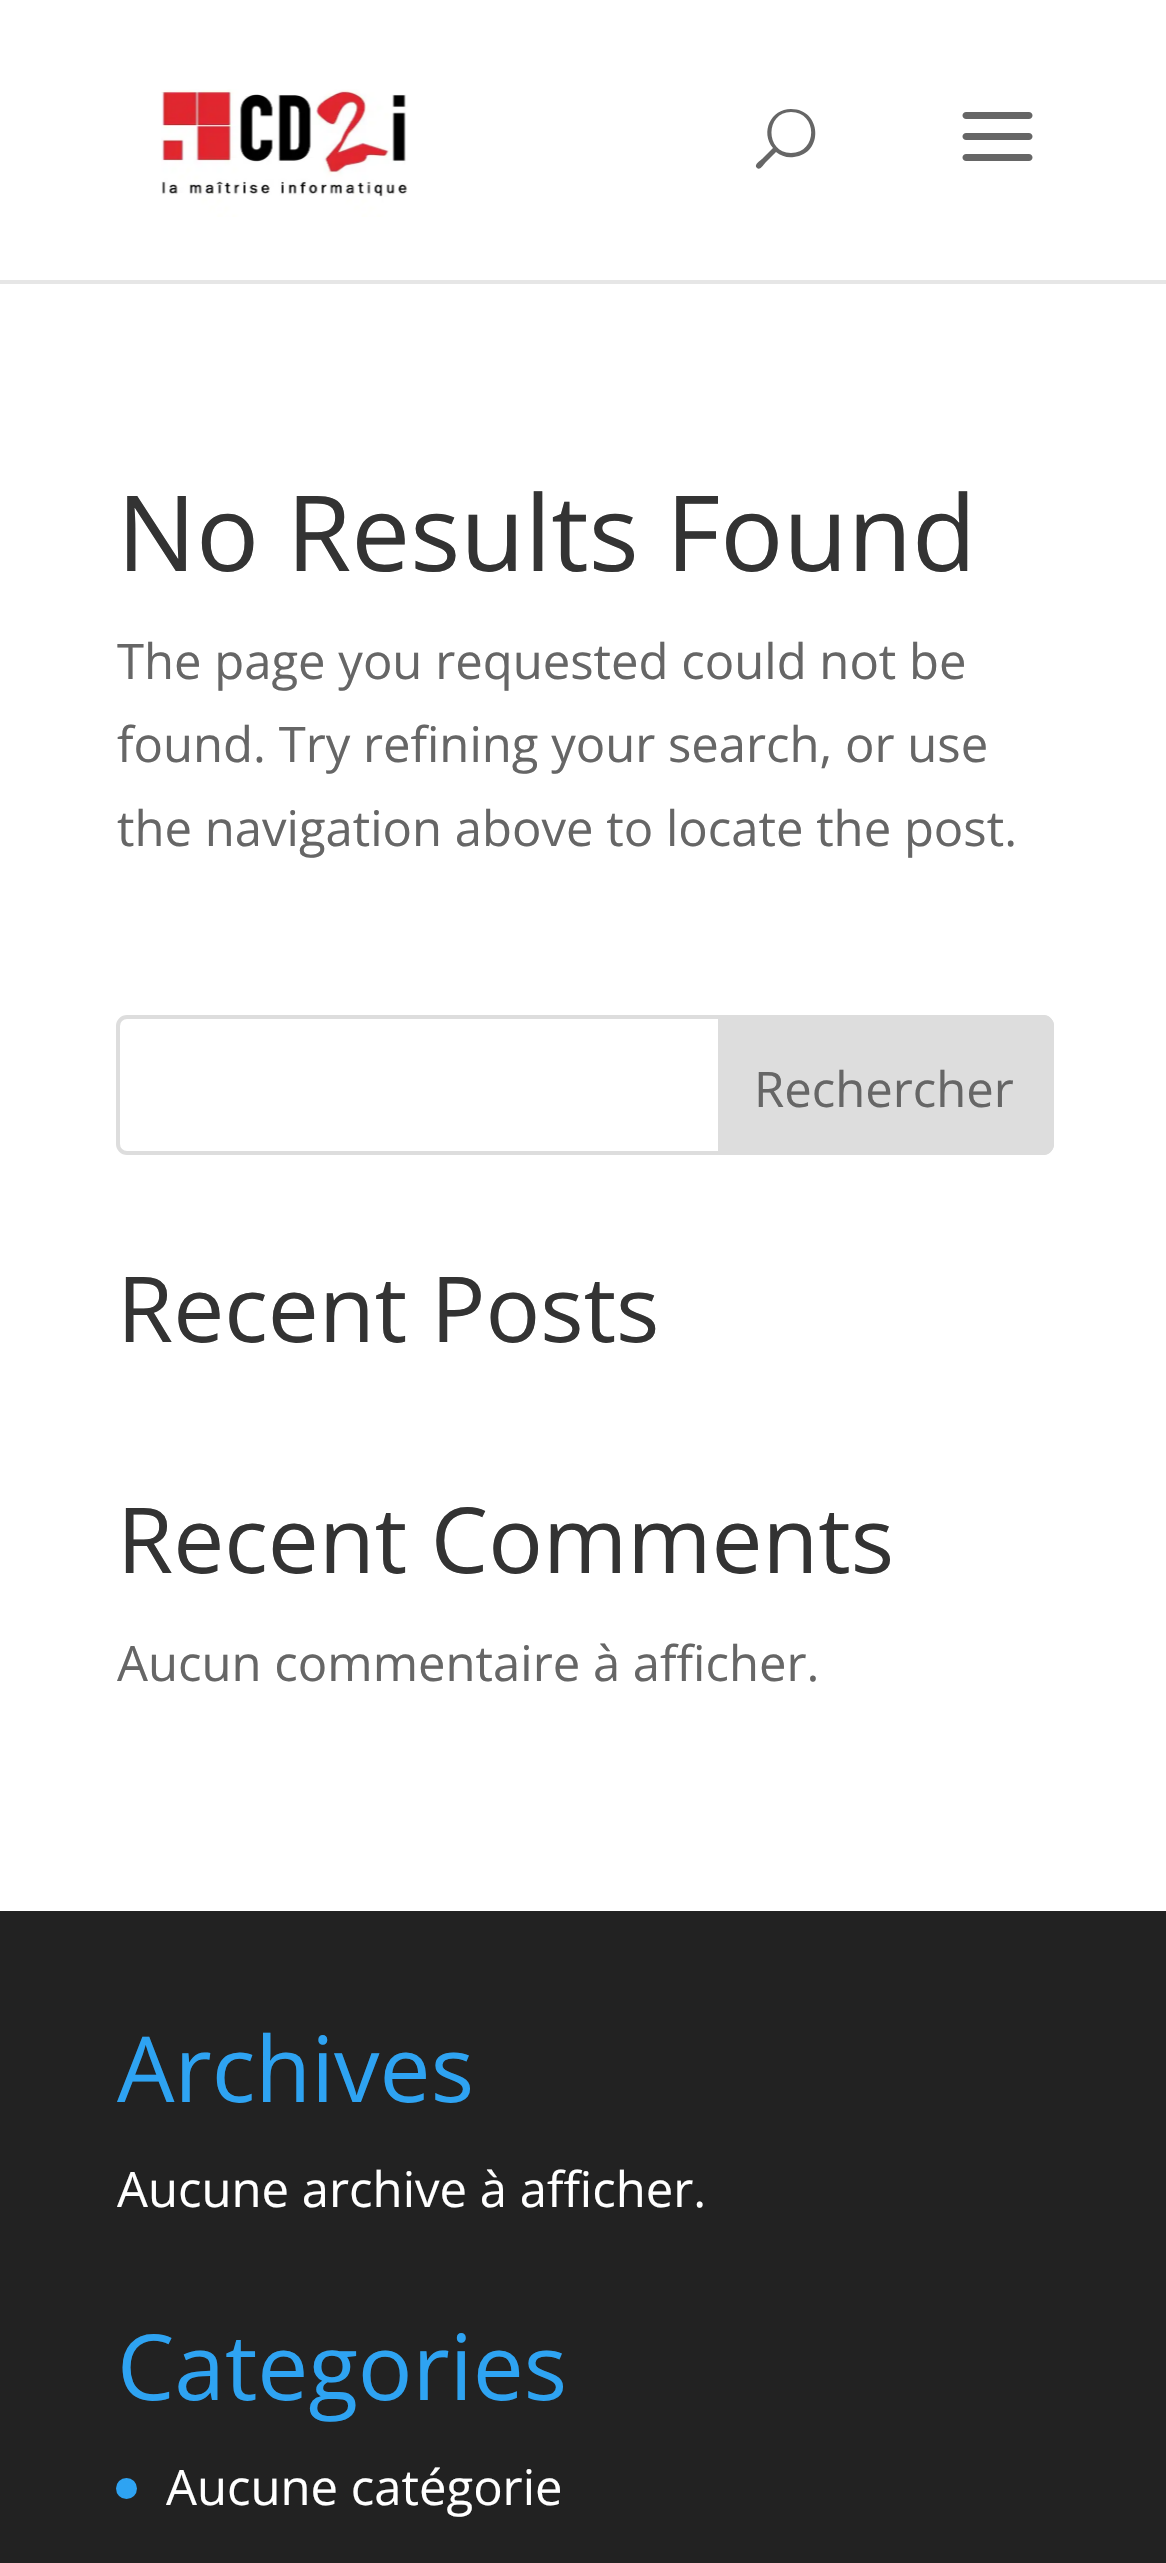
void draw(SkCanvas* canvas) {
	SkPaint paint;
	paint.setAntiAlias(true);
	auto svgPath = [&](const char* data, bool evenOdd = false) {
		SkPath result = *SkParsePath::FromSVGString(data);
		if (evenOdd) result.setFillType(SkPathFillType::kEvenOdd);
		return result;
	};
	canvas->clear(0xffffffff);
	paint.setColor(0xffe6e6e6);
	canvas->drawRect(SkRect::MakeXYWH(0, 280, 1166, 4), paint);
	canvas->drawImageRect(SkImages::DeferredFromEncodedData(SkData::MakeFromFileName("img1.png")), SkRect::MakeXYWH(161, 89, 247, 128), SkSamplingOptions());
	paint.setColor(0xff666666);
	canvas->drawPath(svgPath("M791 109C771 109 760 132 773 148L762 159C761 160 753 165 757 168C760 171 764 164 766 162L776 152C781 156 787 158 794 157C824 154 822 109 791 109ZM791 153C765 153 765 112 791 112C818 112 818 153 791 153Z"), paint);
	canvas->drawImageRect(SkImages::DeferredFromEncodedData(SkData::MakeFromFileName("img2.png")), SkRect::MakeXYWH(962, 112, 71, 49), SkSamplingOptions());
	SkFont f1(fontMgr->matchFamilyStyle("Open Sans", SkFontStyle::Normal()), 105);
	f1.setSubpixel(true);
	paint.setColor(0xff333333);
	canvas->drawString("No Results Found", 117, 571, f1, paint);
	SkFont f2(fontMgr->matchFamilyStyle("Open Sans", SkFontStyle::Normal()), 49);
	f2.setSubpixel(true);
	paint.setColor(0xff666666);
	canvas->drawString("The page you requested could not be", 117, 679, f2, paint);
	canvas->drawString("found. Try refining your search, or use", 117, 762, f2, paint);
	canvas->drawString("the navigation above to locate the post.", 117, 846, f2, paint);
	paint.setStroke(true);
	paint.setStrokeWidth(4);
	paint.setColor(0xffdddddd);
	canvas->drawRoundRect(SkRect::MakeXYWH(118, 1017, 934, 136), 9, 9, paint);
	paint.setStroke(false);
	canvas->drawPath(svgPath("M720 1017H1043C1048 1017 1052 1021 1052 1026V1144C1052 1149 1048 1153 1043 1153H720Z"), paint);
	paint.setStroke(true);
	canvas->drawPath(svgPath("M720 1017H1043C1048 1017 1052 1021 1052 1026V1144C1052 1149 1048 1153 1043 1153H720Z"), paint);
	paint.setStroke(false);
	paint.setColor(0xff666666);
	canvas->drawString("Rechercher", 754, 1107, f2, paint);
	SkFont f3(fontMgr->matchFamilyStyle("Open Sans", SkFontStyle::Normal()), 91);
	f3.setSubpixel(true);
	paint.setColor(0xff333333);
	canvas->drawString("Recent Posts", 117, 1342, f3, paint);
	canvas->drawString("Recent Comments", 117, 1573, f3, paint);
	paint.setColor(0xff666666);
	canvas->drawString("Aucun commentaire à afficher.", 117, 1681, f2, paint);
	paint.setColor(0xff222222);
	canvas->drawRect(SkRect::MakeXYWH(0, 1911, 1166, 652), paint);
	paint.setColor(0xff2ea3f2);
	canvas->drawString("Archives", 117, 2102, f3, paint);
	paint.setColor(0xffffffff);
	canvas->drawString("Aucune archive à afficher.", 117, 2207, f2, paint);
	paint.setColor(0xff2ea3f2);
	canvas->drawString("Categories", 117, 2400, f3, paint);
	canvas->drawCircle(126.5, 2488.5, 10.5, paint);
	paint.setColor(0xffffffff);
	canvas->drawString("Aucune catégorie", 166, 2505, f2, paint);
}
